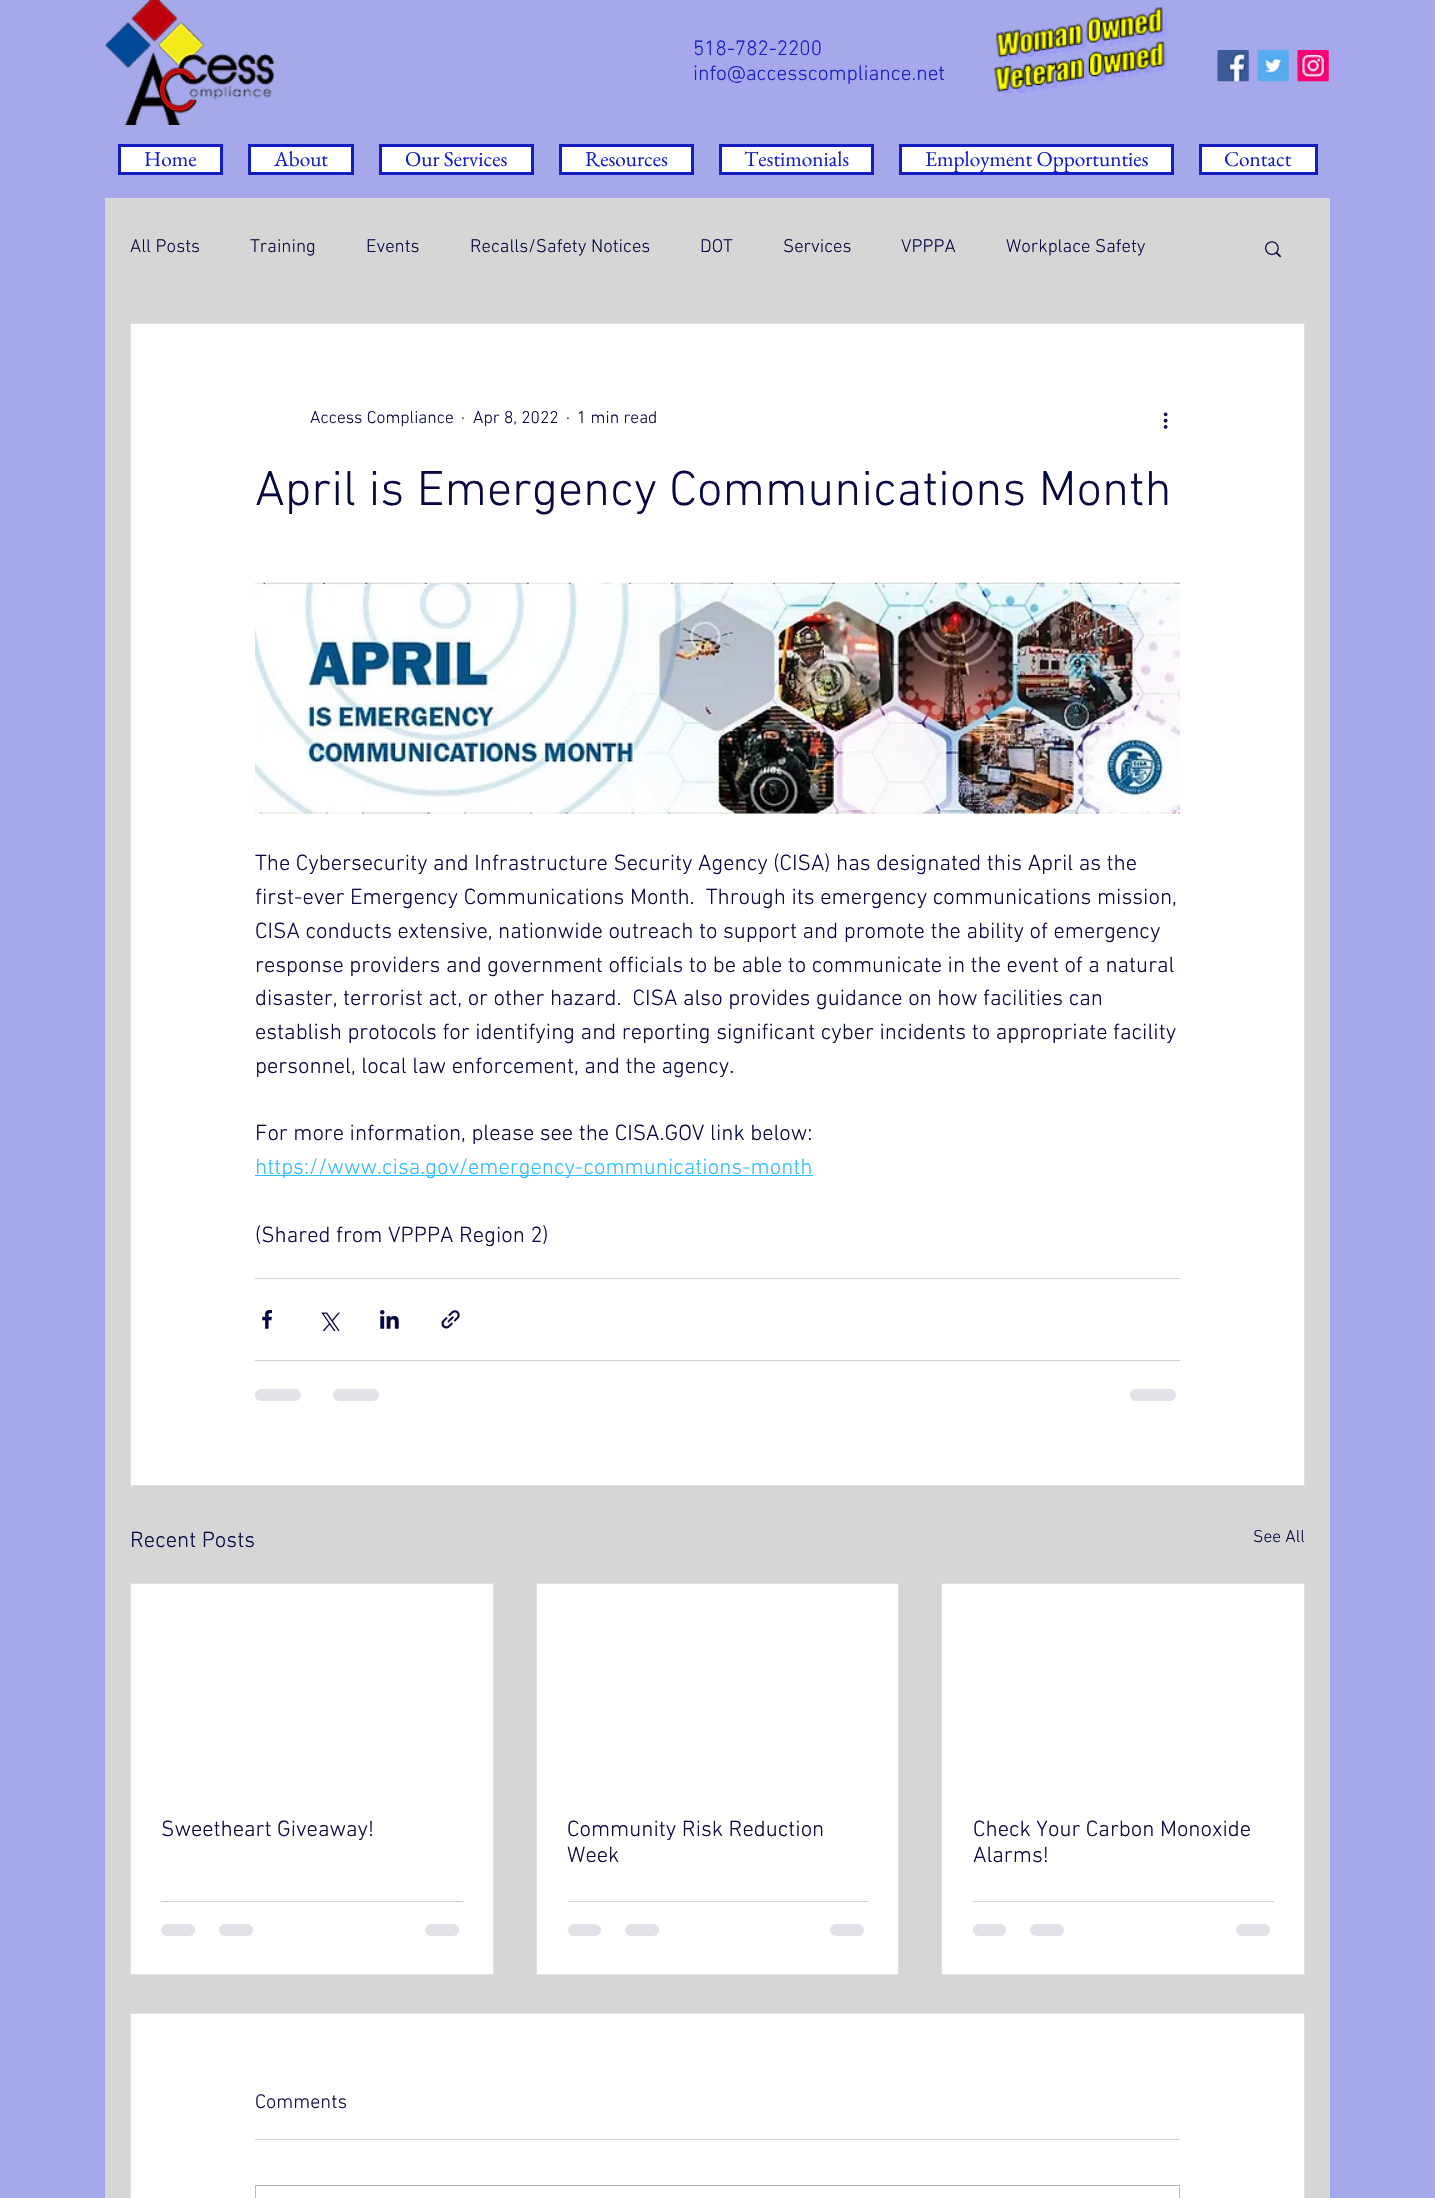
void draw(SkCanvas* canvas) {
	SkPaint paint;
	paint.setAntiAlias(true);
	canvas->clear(0xffa5a8eb);
	canvas->drawImageRect(SkImages::DeferredFromEncodedData(SkData::MakeFromFileName("img1.png")), SkRect::MakeXYWH(105, 0, 169, 125), SkSamplingOptions());
	SkFont f1(fontMgr->matchFamilyStyle("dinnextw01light", SkFontStyle(300, SkFontStyle::kNormal_Width, SkFontStyle::kUpright_Slant)), 21.25);
	f1.setSubpixel(true);
	paint.setColor(0xff141cc4);
	canvas->drawString("518-782-2200", 693, 55, f1, paint);
	canvas->drawString("info@accesscompliance.net", 693, 80, f1, paint);
	canvas->drawImageRect(SkImages::DeferredFromEncodedData(SkData::MakeFromFileName("img2.png")), SkRect::MakeXYWH(993, 6, 174, 88), SkSamplingOptions());
	canvas->drawImageRect(SkImages::DeferredFromEncodedData(SkData::MakeFromFileName("img3.png")), SkRect::MakeXYWH(1217, 50, 32, 32), SkSamplingOptions());
	canvas->drawImageRect(SkImages::DeferredFromEncodedData(SkData::MakeFromFileName("img4.png")), SkRect::MakeXYWH(1257, 50, 32, 32), SkSamplingOptions());
	canvas->drawImageRect(SkImages::DeferredFromEncodedData(SkData::MakeFromFileName("img5.png")), SkRect::MakeXYWH(1297, 50, 32, 32), SkSamplingOptions());
	paint.setColor(0xffffffff);
	canvas->drawRect(SkRect::MakeXYWH(119.5, 145.5, 102, 28), paint);
	paint.setStroke(true);
	paint.setStrokeWidth(3);
	paint.setColor(0xff141cc4);
	canvas->drawRect(SkRect::MakeXYWH(119.5, 145.5, 102, 28), paint);
	SkFont f2(fontMgr->matchFamilyStyle("EB Garamond", SkFontStyle::Normal()), 21.25);
	f2.setSubpixel(true);
	paint.setStroke(false);
	canvas->drawString("Home", 144, 166, f2, paint);
	paint.setColor(0xffffffff);
	canvas->drawRect(SkRect::MakeXYWH(249.5, 145.5, 103, 28), paint);
	paint.setStroke(true);
	paint.setColor(0xff141cc4);
	canvas->drawRect(SkRect::MakeXYWH(249.5, 145.5, 103, 28), paint);
	paint.setStroke(false);
	canvas->drawString("About", 274, 166, f2, paint);
	paint.setColor(0xffffffff);
	canvas->drawRect(SkRect::MakeXYWH(380.5, 145.5, 152, 28), paint);
	paint.setStroke(true);
	paint.setColor(0xff141cc4);
	canvas->drawRect(SkRect::MakeXYWH(380.5, 145.5, 152, 28), paint);
	paint.setStroke(false);
	canvas->drawString("Our Services", 405, 166, f2, paint);
	paint.setColor(0xffffffff);
	canvas->drawRect(SkRect::MakeXYWH(560.5, 145.5, 132, 28), paint);
	paint.setStroke(true);
	paint.setColor(0xff141cc4);
	canvas->drawRect(SkRect::MakeXYWH(560.5, 145.5, 132, 28), paint);
	paint.setStroke(false);
	canvas->drawString("Resources", 585, 166, f2, paint);
	paint.setColor(0xffffffff);
	canvas->drawRect(SkRect::MakeXYWH(720.5, 145.5, 152, 28), paint);
	paint.setStroke(true);
	paint.setColor(0xff141cc4);
	canvas->drawRect(SkRect::MakeXYWH(720.5, 145.5, 152, 28), paint);
	paint.setStroke(false);
	canvas->drawString("Testimonials", 744, 166, f2, paint);
	paint.setColor(0xffffffff);
	canvas->drawRect(SkRect::MakeXYWH(900.5, 145.5, 272, 28), paint);
	paint.setStroke(true);
	paint.setColor(0xff141cc4);
	canvas->drawRect(SkRect::MakeXYWH(900.5, 145.5, 272, 28), paint);
	paint.setStroke(false);
	canvas->drawString("Employment Opportunties", 925, 166, f2, paint);
	paint.setColor(0xffffffff);
	canvas->drawRect(SkRect::MakeXYWH(1200.5, 145.5, 116, 28), paint);
	paint.setStroke(true);
	paint.setColor(0xff141cc4);
	canvas->drawRect(SkRect::MakeXYWH(1200.5, 145.5, 116, 28), paint);
	paint.setStroke(false);
	canvas->drawString("Contact", 1224, 166, f2, paint);
	paint.setColor(0xffd6d6d6);
	canvas->drawRect(SkRect::MakeXYWH(105, 198, 1225, 2000), paint);
	SkFont f3(fontMgr->matchFamilyStyle("dinnextw01light", SkFontStyle(300, SkFontStyle::kNormal_Width, SkFontStyle::kUpright_Slant)), 18.75);
	f3.setSubpixel(true);
	paint.setColor(0xff070941);
	canvas->drawString("All Posts", 130, 252, f3, paint);
	canvas->drawString("Training", 250, 252, f3, paint);
	canvas->drawString("Events", 366, 252, f3, paint);
	canvas->drawString("Recalls/Safety Notices", 470, 252, f3, paint);
	canvas->drawString("DOT", 700, 252, f3, paint);
	canvas->drawString("Services", 783, 252, f3, paint);
	canvas->drawString("VPPPA", 901, 252, f3, paint);
	canvas->drawString("Workplace Safety", 1006, 252, f3, paint);
	canvas->drawImageRect(SkImages::DeferredFromEncodedData(SkData::MakeFromFileName("img6.png")), SkRect::MakeXYWH(1265, 241, 17, 17), SkSamplingOptions());
	paint.setColor(0xffffffff);
	canvas->drawRect(SkRect::MakeXYWH(130.5, 323.5, 1174, 1162), paint);
	paint.setStroke(true);
	paint.setStrokeWidth(1);
	paint.setColor(0xffe0e0e0);
	canvas->drawRect(SkRect::MakeXYWH(130.5, 323.5, 1174, 1162), paint);
	SkFont f4(fontMgr->matchFamilyStyle("dinnextw01light", SkFontStyle(300, SkFontStyle::kNormal_Width, SkFontStyle::kUpright_Slant)), 17.5);
	f4.setSubpixel(true);
	paint.setStroke(false);
	paint.setColor(0xff070941);
	canvas->drawString("Access Compliance", 310, 423, f4, paint);
	canvas->drawString("·", 461, 423, f4, paint);
	canvas->drawString("Apr 8, 2022", 473, 423, f4, paint);
	canvas->drawString("·", 566, 423, f4, paint);
	canvas->drawString("1 min read", 577, 423, f4, paint);
	canvas->drawImageRect(SkImages::DeferredFromEncodedData(SkData::MakeFromFileName("img7.png")), SkRect::MakeXYWH(1163, 412, 5, 17), SkSamplingOptions());
	SkFont f5(fontMgr->matchFamilyStyle("dinnextw01light", SkFontStyle(300, SkFontStyle::kNormal_Width, SkFontStyle::kUpright_Slant)), 50);
	f5.setSubpixel(true);
	canvas->drawString("April is Emergency Communications Month", 255, 505, f5, paint);
	canvas->drawImageRect(SkImages::DeferredFromEncodedData(SkData::MakeFromFileName("img8.png")), SkRect::MakeXYWH(255, 582, 925, 232), SkSamplingOptions());
	SkFont f6(fontMgr->matchFamilyStyle("dinnextw01light", SkFontStyle(300, SkFontStyle::kNormal_Width, SkFontStyle::kUpright_Slant)), 22.5);
	f6.setSubpixel(true);
	canvas->drawString("The Cybersecurity and Infrastructure Security Agency (CISA) has designated this April as the", 255, 870, f6, paint);
	canvas->drawString("first-ever Emergency Communications Month.  Through its emergency communications mission,", 255, 904, f6, paint);
	canvas->drawString("CISA conducts extensive, nationwide outreach to support and promote the ability of emergency", 255, 938, f6, paint);
	canvas->drawString("response providers and government officials to be able to communicate in the event of a natural", 255, 972, f6, paint);
	canvas->drawString("disaster, terrorist act, or other hazard.  CISA also provides guidance on how facilities can", 255, 1005, f6, paint);
	canvas->drawString("establish protocols for identifying and reporting significant cyber incidents to appropriate facility", 255, 1039, f6, paint);
	canvas->drawString("personnel, local law enforcement, and the agency.", 255, 1073, f6, paint);
	canvas->drawString("For more information, please see the CISA.GOV link below:", 255, 1140, f6, paint);
	paint.setColor(0xff30bdff);
	canvas->drawRect(SkRect::MakeXYWH(255, 1175, 558, 1), paint);
	canvas->drawString("https://www.cisa.gov/emergency-communications-month", 255, 1174, f6, paint);
	paint.setColor(0xff070941);
	canvas->drawString("(Shared from VPPPA Region 2)", 255, 1242, f6, paint);
	paint.setColor(0xffcdced9);
	canvas->drawRect(SkRect::MakeXYWH(255, 1278, 925, 1), paint);
	canvas->drawImageRect(SkImages::DeferredFromEncodedData(SkData::MakeFromFileName("img9.png")), SkRect::MakeXYWH(262, 1310, 10, 19), SkSamplingOptions());
	canvas->drawImageRect(SkImages::DeferredFromEncodedData(SkData::MakeFromFileName("img10.png")), SkRect::MakeXYWH(321, 1312, 19, 19), SkSamplingOptions());
	canvas->drawImageRect(SkImages::DeferredFromEncodedData(SkData::MakeFromFileName("img11.png")), SkRect::MakeXYWH(380, 1310, 19, 19), SkSamplingOptions());
	canvas->drawImageRect(SkImages::DeferredFromEncodedData(SkData::MakeFromFileName("img12.png")), SkRect::MakeXYWH(441, 1310, 19, 19), SkSamplingOptions());
	canvas->drawRect(SkRect::MakeXYWH(255, 1360, 925, 1), paint);
	paint.setColor(0xffe1e1e8);
	canvas->drawRoundRect(SkRect::MakeXYWH(255, 1389, 46, 12), 6, 6, paint);
	canvas->drawRoundRect(SkRect::MakeXYWH(333, 1389, 46, 12), 6, 6, paint);
	canvas->drawRoundRect(SkRect::MakeXYWH(1130, 1389, 46, 12), 6, 6, paint);
	paint.setColor(0xff070941);
	canvas->drawString("Recent Posts", 130, 1547, f6, paint);
	canvas->drawString("See All", 1253, 1542, f4, paint);
	paint.setColor(0xffffffff);
	canvas->drawRect(SkRect::MakeXYWH(130.5, 1583.5, 363, 391), paint);
	paint.setStroke(true);
	paint.setColor(0xffe0e0e0);
	canvas->drawRect(SkRect::MakeXYWH(130.5, 1583.5, 363, 391), paint);
	paint.setStroke(false);
	paint.setColor(0xff070941);
	canvas->drawString("Sweetheart Giveaway!", 161, 1836, f6, paint);
	paint.setColor(0xffcdced9);
	canvas->drawRect(SkRect::MakeXYWH(161, 1901, 302, 1), paint);
	paint.setColor(0xffe1e1e8);
	canvas->drawRoundRect(SkRect::MakeXYWH(161, 1924, 34, 12), 6, 6, paint);
	canvas->drawRoundRect(SkRect::MakeXYWH(219, 1924, 34, 12), 6, 6, paint);
	canvas->drawRoundRect(SkRect::MakeXYWH(425, 1924, 34, 12), 6, 6, paint);
	paint.setColor(0xffffffff);
	canvas->drawRect(SkRect::MakeXYWH(536.5, 1583.5, 362, 391), paint);
	paint.setStroke(true);
	paint.setColor(0xffe0e0e0);
	canvas->drawRect(SkRect::MakeXYWH(536.5, 1583.5, 362, 391), paint);
	paint.setStroke(false);
	paint.setColor(0xff070941);
	canvas->drawString("Community Risk Reduction", 567, 1836, f6, paint);
	canvas->drawString("Week", 567, 1862, f6, paint);
	paint.setColor(0xffcdced9);
	canvas->drawRect(SkRect::MakeXYWH(568, 1901, 300, 1), paint);
	paint.setColor(0xffe1e1e8);
	canvas->drawRoundRect(SkRect::MakeXYWH(568, 1924, 33, 12), 6, 6, paint);
	canvas->drawRoundRect(SkRect::MakeXYWH(625, 1924, 34, 12), 6, 6, paint);
	canvas->drawRoundRect(SkRect::MakeXYWH(830, 1924, 34, 12), 6, 6, paint);
	paint.setColor(0xffffffff);
	canvas->drawRect(SkRect::MakeXYWH(941.5, 1583.5, 363, 391), paint);
	paint.setStroke(true);
	paint.setColor(0xffe0e0e0);
	canvas->drawRect(SkRect::MakeXYWH(941.5, 1583.5, 363, 391), paint);
	paint.setStroke(false);
	paint.setColor(0xff070941);
	canvas->drawString("Check Your Carbon Monoxide", 973, 1836, f6, paint);
	canvas->drawString("Alarms!", 973, 1862, f6, paint);
	paint.setColor(0xffcdced9);
	canvas->drawRect(SkRect::MakeXYWH(973, 1901, 301, 1), paint);
	paint.setColor(0xffe1e1e8);
	canvas->drawRoundRect(SkRect::MakeXYWH(973, 1924, 33, 12), 6, 6, paint);
	canvas->drawRoundRect(SkRect::MakeXYWH(1030, 1924, 34, 12), 6, 6, paint);
	canvas->drawRoundRect(SkRect::MakeXYWH(1236, 1924, 34, 12), 6, 6, paint);
	paint.setColor(0xffffffff);
	canvas->drawRect(SkRect::MakeXYWH(130.5, 2013.5, 1174, 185), paint);
	paint.setStroke(true);
	paint.setColor(0xffe0e0e0);
	canvas->drawRect(SkRect::MakeXYWH(130.5, 2013.5, 1174, 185), paint);
	SkFont f7(fontMgr->matchFamilyStyle("dinnextw01light", SkFontStyle(300, SkFontStyle::kNormal_Width, SkFontStyle::kUpright_Slant)), 20);
	f7.setSubpixel(true);
	paint.setStroke(false);
	paint.setColor(0xff070941);
	canvas->drawString("Comments", 255, 2108, f7, paint);
	paint.setColor(0xffcdced9);
	canvas->drawRect(SkRect::MakeXYWH(255, 2139, 925, 1), paint);
	paint.setStroke(true);
	paint.setColor(0xffb5b5c6);
	canvas->drawRect(SkRect::MakeXYWH(255.5, 2185.5, 924, 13), paint);
}
